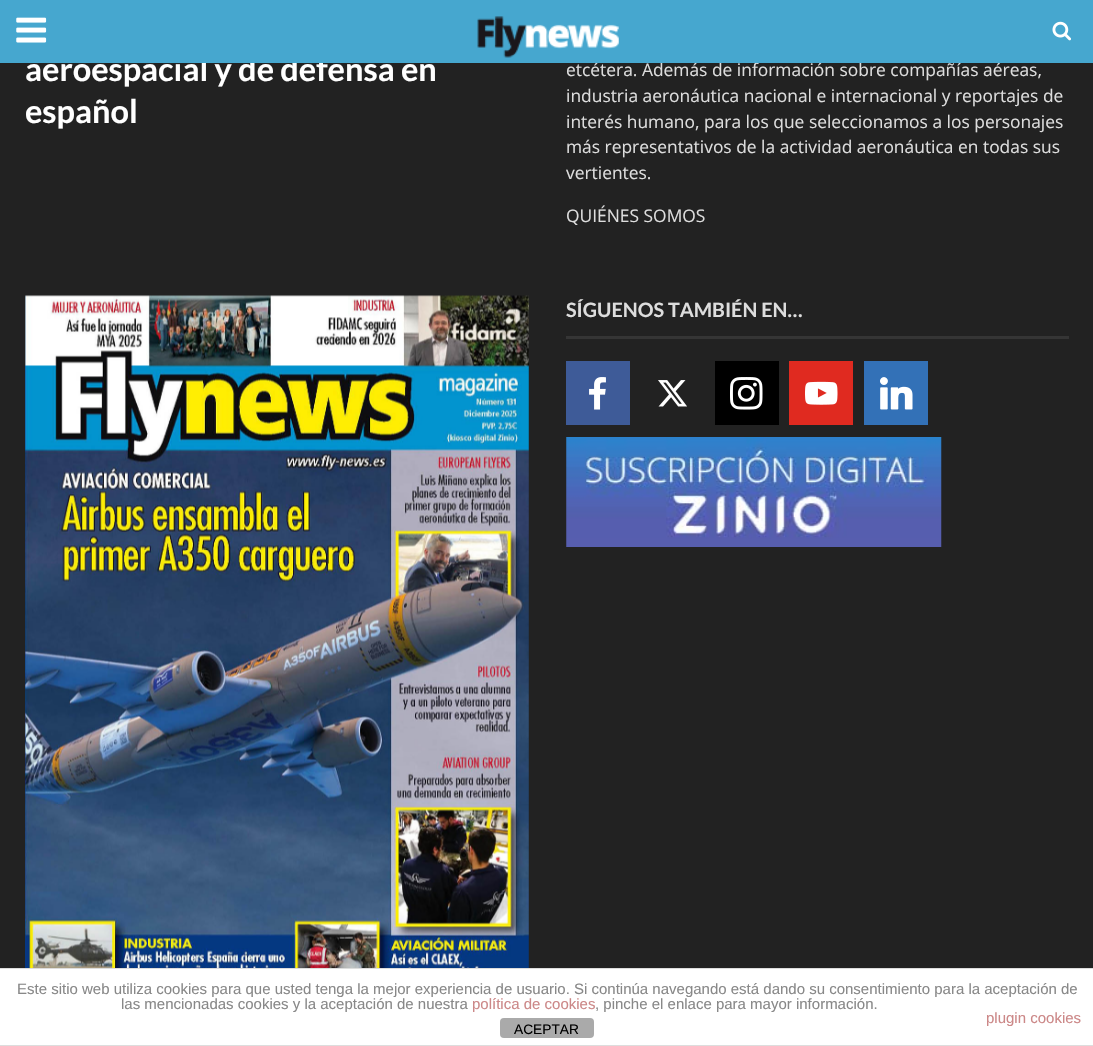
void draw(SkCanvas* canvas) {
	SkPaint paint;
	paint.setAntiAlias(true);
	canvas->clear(0xff222222);
	SkFont f1(fontMgr->matchFamilyStyle("Lato", SkFontStyle::Bold()), 32.5);
	f1.setSubpixel(true);
	paint.setColor(0xffffffff);
	canvas->drawString("aeroespacial y de defensa en", 25, 81, f1, paint);
	SkFont f2(fontMgr->matchFamilyStyle("Open Sans", SkFontStyle::Normal()), 17.4);
	f2.setSubpixel(true);
	paint.setColor(0xffdddddd);
	canvas->drawString("etcétera. Además de información sobre compañías aéreas,", 566, 76, f2, paint);
	paint.setColor(0xff46a7cf);
	canvas->drawRect(SkRect::MakeXYWH(0, 0, 1093, 63), paint);
	canvas->drawImageRect(SkImages::DeferredFromEncodedData(SkData::MakeFromFileName("img1.png")), SkRect::MakeXYWH(16, 17, 31, 26), SkSamplingOptions());
	canvas->drawImageRect(SkImages::DeferredFromEncodedData(SkData::MakeFromFileName("img2.png")), SkRect::MakeXYWH(477, 16, 142, 42), SkSamplingOptions());
	canvas->drawImageRect(SkImages::DeferredFromEncodedData(SkData::MakeFromFileName("img3.png")), SkRect::MakeXYWH(1052, 21, 19, 20), SkSamplingOptions());
	paint.setColor(0xffffffff);
	canvas->drawString("español", 25, 123, f1, paint);
	paint.setColor(0xffdddddd);
	canvas->drawString("industria aeronáutica nacional e internacional y reportajes de", 566, 102, f2, paint);
	canvas->drawString("interés humano, para los que seleccionamos a los personajes", 566, 128, f2, paint);
	canvas->drawString("más representativos de la actividad aeronáutica en todas sus", 566, 153, f2, paint);
	canvas->drawString("vertientes.", 566, 179, f2, paint);
	canvas->drawString("QUIÉNES SOMOS", 566, 222, f2, paint);
	canvas->drawImageRect(SkImages::DeferredFromEncodedData(SkData::MakeFromFileName("img4.png")), SkRect::MakeXYWH(25, 295, 504, 673), SkSamplingOptions());
	SkFont f3(fontMgr->matchFamilyStyle("Lato", SkFontStyle::Bold()), 19.75);
	f3.setSubpixel(true);
	canvas->drawString("SÍGUENOS TAMBIÉN EN…", 566, 317, f3, paint);
	paint.setColor(0xff353535);
	canvas->drawRect(SkRect::MakeXYWH(566, 336, 503, 3), paint);
	paint.setColor(0xff3e5b98);
	canvas->drawRect(SkRect::MakeXYWH(566, 361, 64, 64), paint);
	canvas->drawImageRect(SkImages::DeferredFromEncodedData(SkData::MakeFromFileName("img5.png")), SkRect::MakeXYWH(589, 377, 17, 33), SkSamplingOptions());
	canvas->drawImageRect(SkImages::DeferredFromEncodedData(SkData::MakeFromFileName("img6.png")), SkRect::MakeXYWH(658, 380, 29, 27), SkSamplingOptions());
	paint.setColor(0xff000000);
	canvas->drawRect(SkRect::MakeXYWH(715, 361, 64, 64), paint);
	canvas->drawImageRect(SkImages::DeferredFromEncodedData(SkData::MakeFromFileName("img7.png")), SkRect::MakeXYWH(730, 377, 33, 33), SkSamplingOptions());
	paint.setColor(0xffe02a20);
	canvas->drawRect(SkRect::MakeXYWH(789, 361, 64, 64), paint);
	canvas->drawImageRect(SkImages::DeferredFromEncodedData(SkData::MakeFromFileName("img8.png")), SkRect::MakeXYWH(805, 381, 33, 24), SkSamplingOptions());
	paint.setColor(0xff3371b7);
	canvas->drawRect(SkRect::MakeXYWH(864, 361, 64, 64), paint);
	canvas->drawImageRect(SkImages::DeferredFromEncodedData(SkData::MakeFromFileName("img9.png")), SkRect::MakeXYWH(880, 377, 33, 33), SkSamplingOptions());
	canvas->drawImageRect(SkImages::DeferredFromEncodedData(SkData::MakeFromFileName("img10.png")), SkRect::MakeXYWH(566, 437, 376, 110), SkSamplingOptions());
	paint.setColor(0xffffffff);
	canvas->drawRect(SkRect::MakeXYWH(0, 969, 1093, 76), paint);
	paint.setColor(0xffdddddd);
	canvas->drawRect(SkRect::MakeXYWH(0, 968, 1093, 1), paint);
	canvas->drawRect(SkRect::MakeXYWH(0, 1045, 1093, 1), paint);
	SkFont f4(fontMgr->matchFamilyStyle("Liberation Sans", SkFontStyle::Normal()), 15);
	f4.setSubpixel(true);
	paint.setColor(0xff888888);
	canvas->drawString("Este sitio web utiliza cookies para que usted tenga la mejor experiencia de usuario. Si continúa navegando está dando su consentimiento para la aceptación de", 17, 994, f4, paint);
	canvas->drawString("las mencionadas cookies y la aceptación de nuestra", 121, 1009, f4, paint);
	paint.setColor(0xffcc8888);
	canvas->drawString("política de cookies", 472, 1009, f4, paint);
	paint.setColor(0xff888888);
	canvas->drawString(", pinche el enlace para mayor información.", 595, 1009, f4, paint);
	paint.setColor(0xffcc8888);
	canvas->drawString("plugin cookies", 986, 1023, f4, paint);
	paint.setColor(0xffaaaaaa);
	canvas->drawRoundRect(SkRect::MakeXYWH(500, 1018, 94, 20), 4, 4, paint);
	SkFont f5(fontMgr->matchFamilyStyle("Liberation Sans", SkFontStyle::Normal()), 13.75);
	f5.setSubpixel(true);
	paint.setColor(0xff000000);
	canvas->drawString("ACEPTAR", 514, 1034, f5, paint);
}
